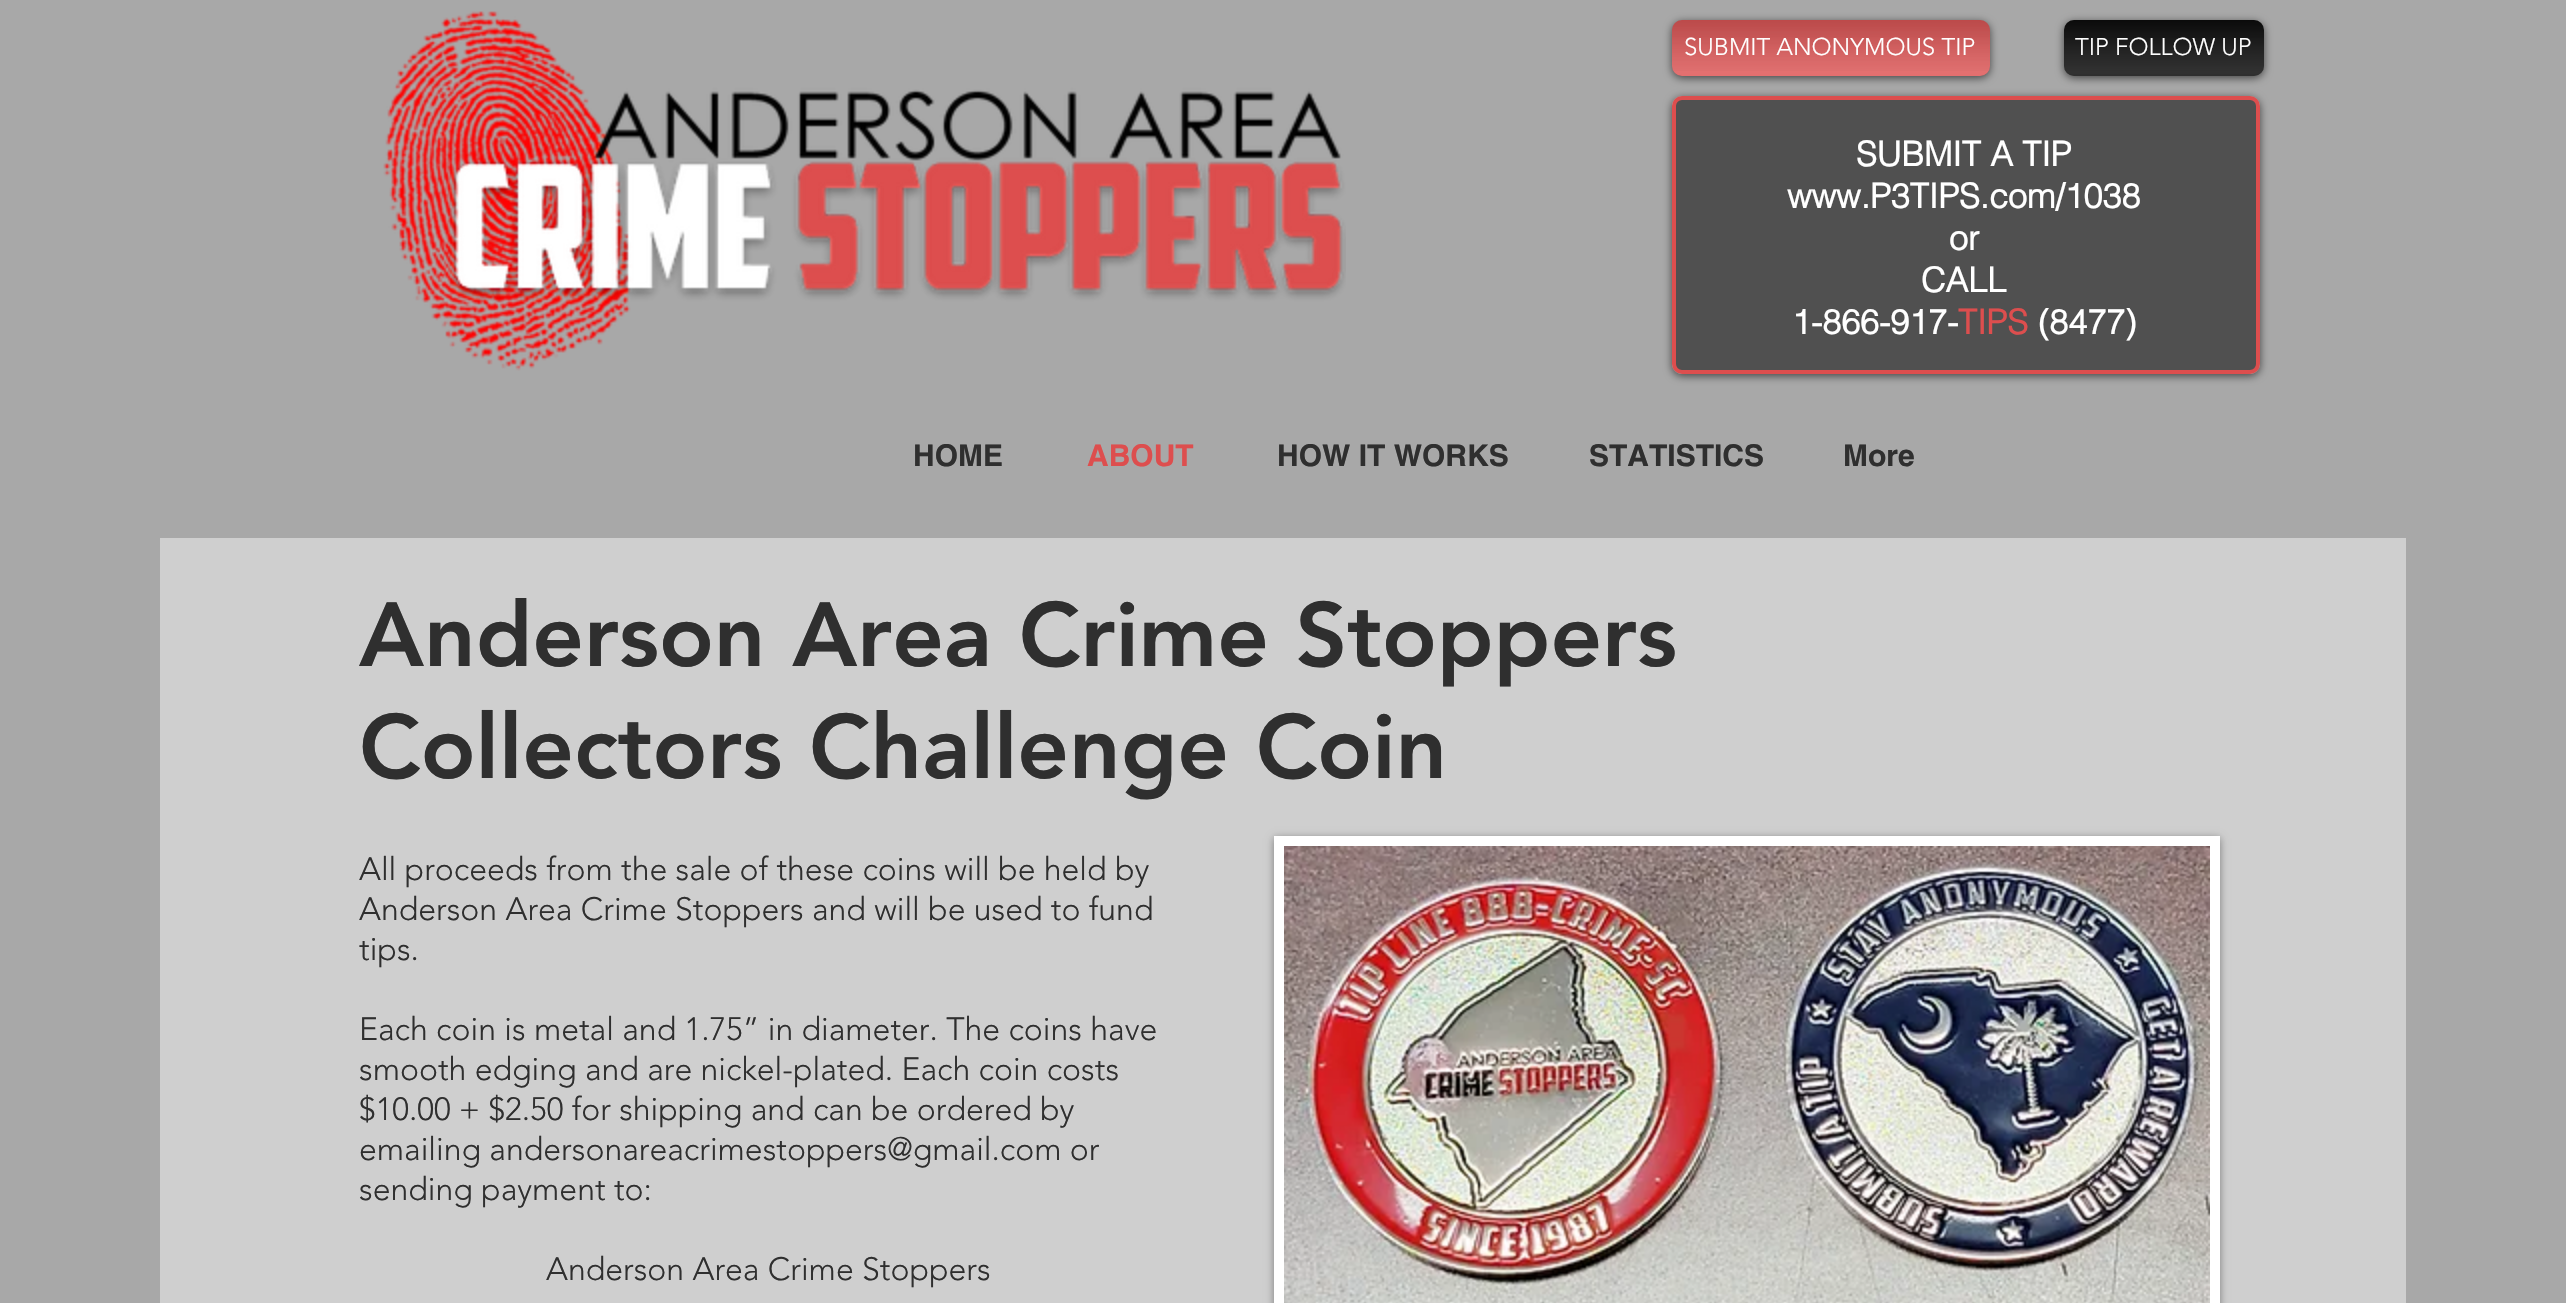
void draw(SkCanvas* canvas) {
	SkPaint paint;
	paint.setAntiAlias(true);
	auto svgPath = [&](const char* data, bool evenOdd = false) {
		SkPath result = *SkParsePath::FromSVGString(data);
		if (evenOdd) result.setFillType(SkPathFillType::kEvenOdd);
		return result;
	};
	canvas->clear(0xffa8a8a8);
	canvas->drawImageRect(SkImages::DeferredFromEncodedData(SkData::MakeFromFileName("img1.png")), SkRect::MakeXYWH(383, 11, 963, 360), SkSamplingOptions());
	paint.setColor(0x99000000);
	paint.setMaskFilter(SkMaskFilter::MakeBlur(kNormal_SkBlurStyle, 4));
	canvas->drawRoundRect(SkRect::MakeXYWH(1672, 22, 318, 56), 10, 10, paint);
	paint.setMaskFilter(nullptr);
	paint.setColor(0xffdd4e4e);
	canvas->drawRoundRect(SkRect::MakeXYWH(1672, 20, 318, 56), 10, 10, paint);
	canvas->drawImageRect(SkImages::DeferredFromEncodedData(SkData::MakeFromFileName("img2.png")), SkRect::MakeXYWH(1672, 20, 318, 51), SkSamplingOptions());
	canvas->drawImageRect(SkImages::DeferredFromEncodedData(SkData::MakeFromFileName("img3.png")), SkRect::MakeXYWH(1672, 20, 318, 56), SkSamplingOptions());
	SkFont f1(fontMgr->matchFamilyStyle("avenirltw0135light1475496", SkFontStyle(300, SkFontStyle::kNormal_Width, SkFontStyle::kUpright_Slant)), 24);
	f1.setSubpixel(true);
	paint.setColor(0xffffffff);
	canvas->drawString("SUBMIT ANONYMOUS TIP", 1684, 55, f1, paint);
	paint.setColor(0x99000000);
	paint.setMaskFilter(SkMaskFilter::MakeBlur(kNormal_SkBlurStyle, 4));
	canvas->drawRoundRect(SkRect::MakeXYWH(2064, 22, 200, 56), 10, 10, paint);
	paint.setMaskFilter(nullptr);
	paint.setColor(0xff000000);
	canvas->drawRoundRect(SkRect::MakeXYWH(2064, 20, 200, 56), 10, 10, paint);
	canvas->drawImageRect(SkImages::DeferredFromEncodedData(SkData::MakeFromFileName("img4.png")), SkRect::MakeXYWH(2066, 20, 196, 4), SkSamplingOptions());
	canvas->drawImageRect(SkImages::DeferredFromEncodedData(SkData::MakeFromFileName("img5.png")), SkRect::MakeXYWH(2064, 20, 200, 56), SkSamplingOptions());
	paint.setColor(0xffffffff);
	canvas->drawString("TIP FOLLOW UP", 2075, 55, f1, paint);
	canvas->save();
	canvas->clipPath(svgPath("M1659 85H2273V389H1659ZM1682 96H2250C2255.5 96 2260 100.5 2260 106V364C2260 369.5 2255.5 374 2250 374H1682C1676.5 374 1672 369.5 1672 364V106C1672 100.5 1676.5 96 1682 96Z", true), true);
	paint.setColor(0x99000000);
	paint.setMaskFilter(SkMaskFilter::MakeBlur(kNormal_SkBlurStyle, 4));
	canvas->drawRoundRect(SkRect::MakeXYWH(1672, 98, 588, 278), 10, 10, paint);
	paint.setMaskFilter(nullptr);
	canvas->restore();
	paint.setColor(0xba2f2e2e);
	canvas->drawRoundRect(SkRect::MakeXYWH(1674, 98, 584, 274), 8, 8, paint);
	paint.setStroke(true);
	paint.setStrokeWidth(4);
	paint.setColor(0xffdd4e4e);
	canvas->drawRoundRect(SkRect::MakeXYWH(1674, 98, 584, 274), 8, 8, paint);
	SkFont f2(fontMgr->matchFamilyStyle("helvetica", SkFontStyle::Bold()), 34);
	f2.setSubpixel(true);
	paint.setStroke(false);
	paint.setColor(0xffffffff);
	canvas->drawString("SUBMIT A TIP", 1856, 166, f2, paint);
	canvas->drawString("www.P3TIPS.com/1038", 1787, 208, f2, paint);
	canvas->drawString("or", 1949, 250, f2, paint);
	canvas->drawString("CALL", 1921, 292, f2, paint);
	canvas->drawString("1-866-917-", 1792, 334, f2, paint);
	paint.setColor(0xffdd4e4e);
	canvas->drawString("TIPS", 1958, 334, f2, paint);
	paint.setColor(0xffffffff);
	canvas->drawString("(8477)", 2038, 334, f2, paint);
	SkFont f3(fontMgr->matchFamilyStyle("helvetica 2", SkFontStyle::Bold()), 30);
	f3.setSubpixel(true);
	paint.setColor(0xff2f2f2f);
	canvas->drawString("HOME", 913, 466, f3, paint);
	paint.setColor(0xffdd4e4e);
	canvas->drawString("ABOUT", 1087, 466, f3, paint);
	paint.setColor(0xff2f2f2f);
	canvas->drawString("HOW IT WORKS", 1277, 466, f3, paint);
	canvas->drawString("STATISTICS", 1589, 466, f3, paint);
	canvas->drawString("More", 1843, 466, f3, paint);
	paint.setColor(0xffcfcfcf);
	canvas->drawRect(SkRect::MakeXYWH(160, 538, 2246, 765), paint);
	SkFont f4(fontMgr->matchFamilyStyle("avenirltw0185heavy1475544", SkFontStyle(900, SkFontStyle::kNormal_Width, SkFontStyle::kUpright_Slant)), 90);
	f4.setSubpixel(true);
	paint.setColor(0xff2f2f2f);
	canvas->drawString("Anderson Area Crime Stoppers", 359, 666, f4, paint);
	canvas->drawString("Collectors Challenge Coin", 359, 778, f4, paint);
	SkFont f5(fontMgr->matchFamilyStyle("avenirltw0135light1475496", SkFontStyle(300, SkFontStyle::kNormal_Width, SkFontStyle::kUpright_Slant)), 32);
	f5.setSubpixel(true);
	canvas->drawString("All proceeds from the sale of these coins will be held by", 359, 880, f5, paint);
	canvas->drawString("Anderson Area Crime Stoppers and will be used to fund", 359, 920, f5, paint);
	canvas->drawString("tips.", 359, 960, f5, paint);
	canvas->drawString("Each coin is metal and 1.75” in diameter. The coins have", 359, 1040, f5, paint);
	canvas->drawString("smooth edging and are nickel-plated. Each coin costs", 359, 1080, f5, paint);
	canvas->drawString("$10.00 + $2.50 for shipping and can be ordered by", 359, 1120, f5, paint);
	canvas->drawString("emailing andersonareacrimestoppers@gmail.com or", 359, 1160, f5, paint);
	canvas->drawString("sending payment to:", 359, 1200, f5, paint);
	canvas->drawString("Anderson Area Crime Stoppers", 546, 1280, f5, paint);
	paint.setColor(0x66000000);
	paint.setMaskFilter(SkMaskFilter::MakeBlur(kNormal_SkBlurStyle, 4));
	canvas->drawRect(SkRect::MakeXYWH(1274, 838, 946, 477), paint);
	paint.setMaskFilter(nullptr);
	paint.setColor(0xffffffff);
	canvas->drawRect(SkRect::MakeXYWH(1274, 836, 946, 467), paint);
	canvas->drawImageRect(SkImages::DeferredFromEncodedData(SkData::MakeFromFileName("img6.png")), SkRect::MakeXYWH(1284, 846, 926, 457), SkSamplingOptions());
}
